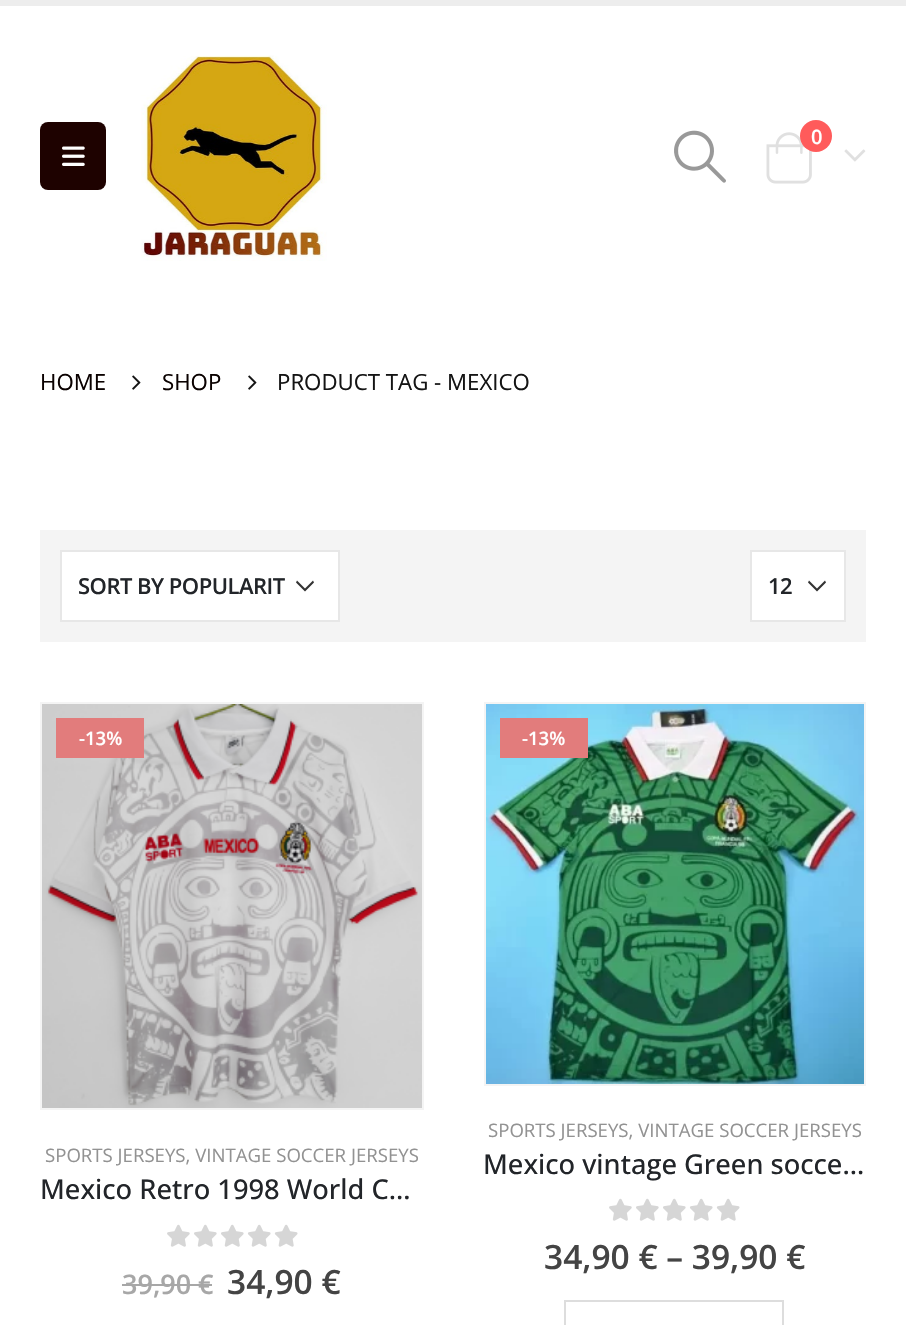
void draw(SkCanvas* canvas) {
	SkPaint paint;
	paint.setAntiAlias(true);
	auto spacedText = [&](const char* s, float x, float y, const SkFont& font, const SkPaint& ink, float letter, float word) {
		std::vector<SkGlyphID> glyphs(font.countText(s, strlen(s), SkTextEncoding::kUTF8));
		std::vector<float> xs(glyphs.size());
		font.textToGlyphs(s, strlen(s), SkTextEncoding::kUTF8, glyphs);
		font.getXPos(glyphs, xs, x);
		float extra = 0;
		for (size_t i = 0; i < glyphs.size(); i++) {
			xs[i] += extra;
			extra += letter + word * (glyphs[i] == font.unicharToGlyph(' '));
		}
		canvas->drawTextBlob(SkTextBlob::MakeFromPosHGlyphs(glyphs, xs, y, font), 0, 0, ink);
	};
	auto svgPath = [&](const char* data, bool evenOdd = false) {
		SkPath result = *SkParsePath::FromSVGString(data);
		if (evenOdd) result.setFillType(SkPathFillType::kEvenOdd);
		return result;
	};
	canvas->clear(0xffffffff);
	paint.setColor(0xffededed);
	canvas->drawRect(SkRect::MakeXYWH(0, 0, 906, 6), paint);
	paint.setColor(0xff1e0200);
	canvas->drawRoundRect(SkRect::MakeXYWH(40, 122, 66, 68), 8, 8, paint);
	canvas->drawImageRect(SkImages::DeferredFromEncodedData(SkData::MakeFromFileName("img1.png")), SkRect::MakeXYWH(62, 146, 23, 20), SkSamplingOptions());
	canvas->drawImageRect(SkImages::DeferredFromEncodedData(SkData::MakeFromFileName("img2.png")), SkRect::MakeXYWH(141, 55, 186, 206), SkSamplingOptions());
	canvas->drawImageRect(SkImages::DeferredFromEncodedData(SkData::MakeFromFileName("img3.png")), SkRect::MakeXYWH(674, 130, 52, 53), SkSamplingOptions());
	canvas->drawImageRect(SkImages::DeferredFromEncodedData(SkData::MakeFromFileName("img4.png")), SkRect::MakeXYWH(766, 132, 46, 52), SkSamplingOptions());
	paint.setColor(0xffff5b5b);
	canvas->drawCircle(816, 136, 16, paint);
	SkFont f1(fontMgr->matchFamilyStyle("Open Sans", SkFontStyle(600, SkFontStyle::kNormal_Width, SkFontStyle::kUpright_Slant)), 20);
	f1.setSubpixel(true);
	paint.setColor(0xffffffff);
	canvas->drawString("0", 811, 144, f1, paint);
	canvas->drawImageRect(SkImages::DeferredFromEncodedData(SkData::MakeFromFileName("img5.png")), SkRect::MakeXYWH(844, 149, 22, 13), SkSamplingOptions());
	SkFont f2(fontMgr->matchFamilyStyle("Open Sans", SkFontStyle::Normal()), 22.25);
	f2.setSubpixel(true);
	paint.setColor(0xff0a0100);
	canvas->drawString("HOME", 40, 390, f2, paint);
	canvas->drawImageRect(SkImages::DeferredFromEncodedData(SkData::MakeFromFileName("img6.png")), SkRect::MakeXYWH(132, 375, 9, 15), SkSamplingOptions());
	canvas->drawString("SHOP", 162, 390, f2, paint);
	canvas->drawImageRect(SkImages::DeferredFromEncodedData(SkData::MakeFromFileName("img6.png")), SkRect::MakeXYWH(248, 375, 9, 15), SkSamplingOptions());
	paint.setColor(0xff141414);
	canvas->drawString("PRODUCT TAG - MEXICO", 277, 390, f2, paint);
	paint.setColor(0xfff4f4f4);
	canvas->drawRect(SkRect::MakeXYWH(40, 530, 826, 112), paint);
	paint.setColor(0xffffffff);
	canvas->drawRect(SkRect::MakeXYWH(62, 552, 276, 68), paint);
	paint.setColor(0xff333333);
	canvas->drawPath(svgPath("M305 591.5L314 582.5L313 580.5L305 588.5L297 580.5L296 582.5Z", true), paint);
	paint.setStroke(true);
	paint.setStrokeWidth(2);
	paint.setColor(0xffe7e7e7);
	canvas->drawRect(SkRect::MakeXYWH(61, 551, 278, 70), paint);
	SkFont f3(fontMgr->matchFamilyStyle("Open Sans", SkFontStyle(600, SkFontStyle::kNormal_Width, SkFontStyle::kUpright_Slant)), 22);
	f3.setSubpixel(true);
	paint.setStroke(false);
	paint.setColor(0xff222529);
	spacedText("SORT BY POPULARIT", 78, 594, f3, paint, -0.5, 0);
	paint.setColor(0xffffffff);
	canvas->drawRect(SkRect::MakeXYWH(752, 552, 92, 68), paint);
	paint.setColor(0xff333333);
	canvas->drawPath(svgPath("M817 591.5L826 582.5L825 580.5L817 588.5L809 580.5L808 582.5Z", true), paint);
	paint.setStroke(true);
	paint.setColor(0xffe7e7e7);
	canvas->drawRect(SkRect::MakeXYWH(751, 551, 94, 70), paint);
	paint.setStroke(false);
	paint.setColor(0xff222529);
	spacedText("12", 768, 594, f3, paint, -0.5, 0);
	paint.setStroke(true);
	paint.setColor(0xfff4f4f4);
	canvas->drawRect(SkRect::MakeXYWH(41, 703, 382, 406), paint);
	canvas->drawImageRect(SkImages::DeferredFromEncodedData(SkData::MakeFromFileName("img7.png")), SkRect::MakeXYWH(42, 704, 380, 404), SkSamplingOptions());
	paint.setStroke(false);
	paint.setColor(0xffe27c7c);
	canvas->drawRect(SkRect::MakeXYWH(56, 718, 88, 40), paint);
	SkFont f4(fontMgr->matchFamilyStyle("Open Sans", SkFontStyle(600, SkFontStyle::kNormal_Width, SkFontStyle::kUpright_Slant)), 18.6);
	f4.setSubpixel(true);
	paint.setColor(0xffffffff);
	canvas->drawString("-13%", 79, 745, f4, paint);
	SkFont f5(fontMgr->matchFamilyStyle("Open Sans", SkFontStyle::Normal()), 18.6);
	f5.setSubpixel(true);
	paint.setColor(0xff929292);
	canvas->drawString("SPORTS JERSEYS, VINTAGE SOCCER JERSEYS", 45, 1162, f5, paint);
	SkFont f6(fontMgr->matchFamilyStyle("Open Sans", SkFontStyle(500, SkFontStyle::kNormal_Width, SkFontStyle::kUpright_Slant)), 27.3);
	f6.setSubpixel(true);
	paint.setColor(0xff222529);
	canvas->drawString("Mexico Retro 1998 World C…", 40, 1199, f6, paint);
	canvas->drawImageRect(SkImages::DeferredFromEncodedData(SkData::MakeFromFileName("img8.png")), SkRect::MakeXYWH(167, 1224, 131, 23), SkSamplingOptions());
	SkFont f7(fontMgr->matchFamilyStyle("Open Sans", SkFontStyle(600, SkFontStyle::kNormal_Width, SkFontStyle::kUpright_Slant)), 27);
	f7.setSubpixel(true);
	paint.setColor(0xffa7a7a7);
	canvas->drawString("39,90 €", 122, 1294, f7, paint);
	canvas->drawRect(SkRect::MakeXYWH(122, 1284, 90, 2), paint);
	SkFont f8(fontMgr->matchFamilyStyle("Open Sans", SkFontStyle(600, SkFontStyle::kNormal_Width, SkFontStyle::kUpright_Slant)), 33.5);
	f8.setSubpixel(true);
	paint.setColor(0xff444444);
	canvas->drawString("34,90 €", 227, 1294, f8, paint);
	paint.setStroke(true);
	paint.setColor(0xfff4f4f4);
	canvas->drawRect(SkRect::MakeXYWH(485, 703, 380, 382), paint);
	canvas->drawImageRect(SkImages::DeferredFromEncodedData(SkData::MakeFromFileName("img9.png")), SkRect::MakeXYWH(486, 704, 378, 380), SkSamplingOptions());
	paint.setStroke(false);
	paint.setColor(0xffe27c7c);
	canvas->drawRect(SkRect::MakeXYWH(500, 718, 88, 40), paint);
	paint.setColor(0xffffffff);
	canvas->drawString("-13%", 522, 745, f4, paint);
	paint.setColor(0xff929292);
	canvas->drawString("SPORTS JERSEYS, VINTAGE SOCCER JERSEYS", 488, 1137, f5, paint);
	paint.setColor(0xff222529);
	canvas->drawString("Mexico vintage Green socce…", 483, 1174, f6, paint);
	canvas->drawImageRect(SkImages::DeferredFromEncodedData(SkData::MakeFromFileName("img8.png")), SkRect::MakeXYWH(609, 1198, 131, 23), SkSamplingOptions());
	paint.setColor(0xff444444);
	canvas->drawString("34,90 € – 39,90 €", 544, 1269, f8, paint);
	paint.setStroke(true);
	paint.setColor(0xffdddddd);
	canvas->drawRect(SkRect::MakeXYWH(565, 1301, 218, 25), paint);
}
